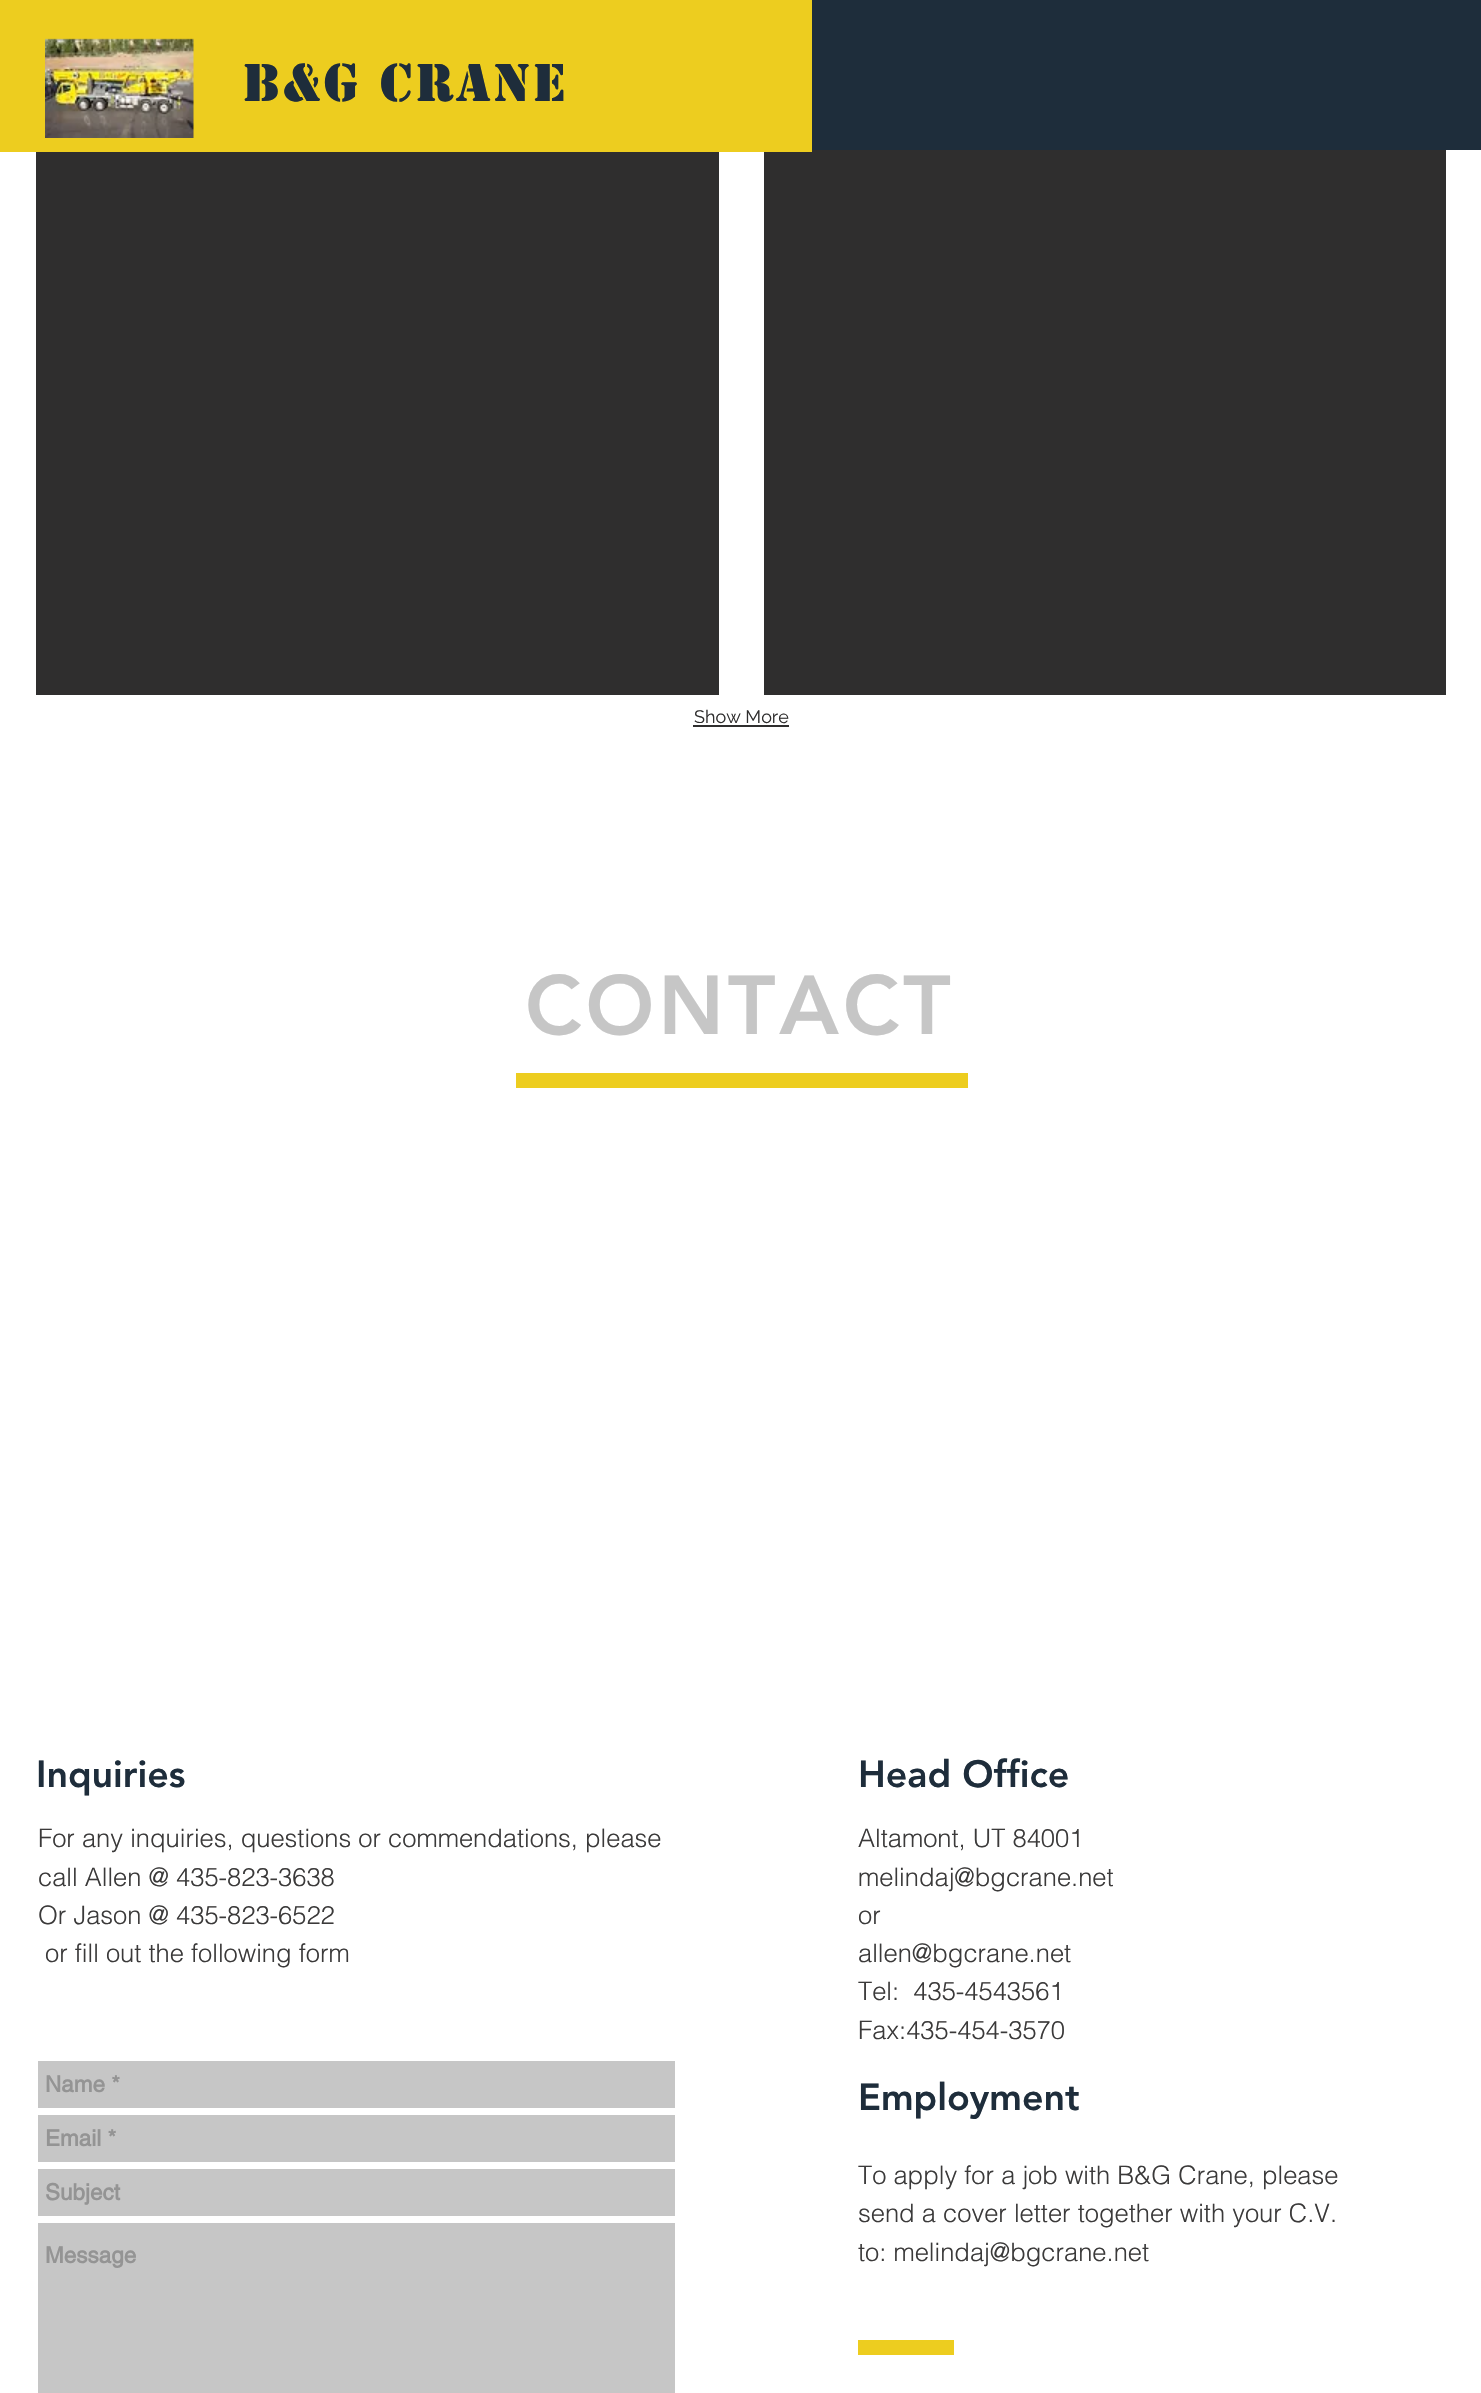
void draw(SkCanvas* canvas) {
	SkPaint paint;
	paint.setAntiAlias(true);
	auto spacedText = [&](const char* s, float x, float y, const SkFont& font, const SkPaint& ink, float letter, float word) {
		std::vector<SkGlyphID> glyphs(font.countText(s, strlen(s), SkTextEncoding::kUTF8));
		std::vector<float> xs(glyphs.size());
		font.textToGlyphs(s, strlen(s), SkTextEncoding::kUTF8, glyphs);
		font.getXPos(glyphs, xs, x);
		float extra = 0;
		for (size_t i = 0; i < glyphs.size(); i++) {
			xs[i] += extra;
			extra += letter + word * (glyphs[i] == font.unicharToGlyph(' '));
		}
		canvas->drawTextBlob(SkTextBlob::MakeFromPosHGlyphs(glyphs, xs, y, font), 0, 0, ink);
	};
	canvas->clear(0xffffffff);
	paint.setColor(0xff2f2e2e);
	canvas->drawRect(SkRect::MakeXYWH(764, 150, 682, 545), paint);
	paint.setColor(0xffedcd1f);
	canvas->drawRect(SkRect::MakeXYWH(0, 0, 812, 152), paint);
	canvas->drawImageRect(SkImages::DeferredFromEncodedData(SkData::MakeFromFileName("img1.png")), SkRect::MakeXYWH(45, 38, 149, 100), SkSamplingOptions());
	SkFont f1(fontMgr->matchFamilyStyle("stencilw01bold", SkFontStyle::Bold()), 49.5);
	f1.setSubpixel(true);
	paint.setColor(0xff1e2d3b);
	spacedText("B&G CRANE", 243, 101, f1, paint, 2.5, 0);
	canvas->drawRect(SkRect::MakeXYWH(812, 0, 669, 150), paint);
	paint.setColor(0xff2f2e2e);
	canvas->drawRect(SkRect::MakeXYWH(36, 152, 683, 543), paint);
	SkFont f2(fontMgr->matchFamilyStyle("Raleway", SkFontStyle::Normal()), 18);
	f2.setSubpixel(true);
	canvas->drawString("Show More", 694, 723, f2, paint);
	canvas->drawRect(SkRect::MakeXYWH(693, 725, 96, 2), paint);
	SkFont f3(fontMgr->matchFamilyStyle("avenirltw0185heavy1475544", SkFontStyle(900, SkFontStyle::kNormal_Width, SkFontStyle::kUpright_Slant)), 82.5);
	f3.setSubpixel(true);
	paint.setColor(0xffc6c6c6);
	spacedText("CONTACT", 525, 1034, f3, paint, 4, 0);
	paint.setColor(0xffedcd1f);
	canvas->drawRect(SkRect::MakeXYWH(516, 1073, 452, 15), paint);
	SkFont f4(fontMgr->matchFamilyStyle("avenirltw0185heavy1475544", SkFontStyle(900, SkFontStyle::kNormal_Width, SkFontStyle::kUpright_Slant)), 37.5);
	f4.setSubpixel(true);
	paint.setColor(0xff1e2d3b);
	canvas->drawString("Inquiries", 36, 1787, f4, paint);
	canvas->drawString("Head Office", 858, 1787, f4, paint);
	SkFont f5(fontMgr->matchFamilyStyle("helvetica", SkFontStyle(300, SkFontStyle::kNormal_Width, SkFontStyle::kUpright_Slant)), 25.5);
	f5.setSubpixel(true);
	paint.setColor(0xff3b3a3a);
	canvas->drawString("For any inquiries, questions or commendations, please", 38, 1847, f5, paint);
	canvas->drawString("call Allen @ 435-823-3638", 38, 1886, f5, paint);
	canvas->drawString("Or Jason @ 435-823-6522", 38, 1924, f5, paint);
	canvas->drawString("or fill out the following form", 45, 1962, f5, paint);
	canvas->drawString("Altamont, UT 84001", 858, 1847, f5, paint);
	canvas->drawString("melindaj@bgcrane.net", 858, 1886, f5, paint);
	canvas->drawString("or", 858, 1924, f5, paint);
	canvas->drawString("allen@bgcrane.net", 858, 1962, f5, paint);
	canvas->drawString("Tel:  435-4543561", 858, 2000, f5, paint);
	canvas->drawString("Fax:435-454-3570", 858, 2039, f5, paint);
	paint.setColor(0xffc6c6c6);
	canvas->drawRect(SkRect::MakeXYWH(38, 2061, 637, 47), paint);
	SkFont f6(fontMgr->matchFamilyStyle("helvetica", SkFontStyle::Bold()), 22.5);
	f6.setSubpixel(true);
	paint.setColor(0xff949494);
	canvas->drawString("Name *", 45, 2092, f6, paint);
	paint.setColor(0xffc6c6c6);
	canvas->drawRect(SkRect::MakeXYWH(38, 2115, 637, 47), paint);
	paint.setColor(0xff949494);
	canvas->drawString("Email *", 45, 2146, f6, paint);
	paint.setColor(0xffc6c6c6);
	canvas->drawRect(SkRect::MakeXYWH(38, 2169, 637, 47), paint);
	paint.setColor(0xff949494);
	canvas->drawString("Subject", 45, 2200, f6, paint);
	paint.setColor(0xffc6c6c6);
	canvas->drawRect(SkRect::MakeXYWH(38, 2223, 637, 170), paint);
	paint.setColor(0xff949494);
	canvas->drawString("Message", 45, 2263, f6, paint);
	paint.setColor(0xff1e2d3b);
	canvas->drawString("Employment", 858, 2110, f4, paint);
	paint.setColor(0xff3b3a3a);
	canvas->drawString("To apply for a job with B&G Crane, please", 858, 2184, f5, paint);
	canvas->drawString("send a cover letter together with your C.V.", 858, 2222, f5, paint);
	canvas->drawString("to: melindaj@bgcrane.net", 858, 2261, f5, paint);
	paint.setColor(0xffedcd1f);
	canvas->drawRect(SkRect::MakeXYWH(858, 2340, 96, 15), paint);
}
